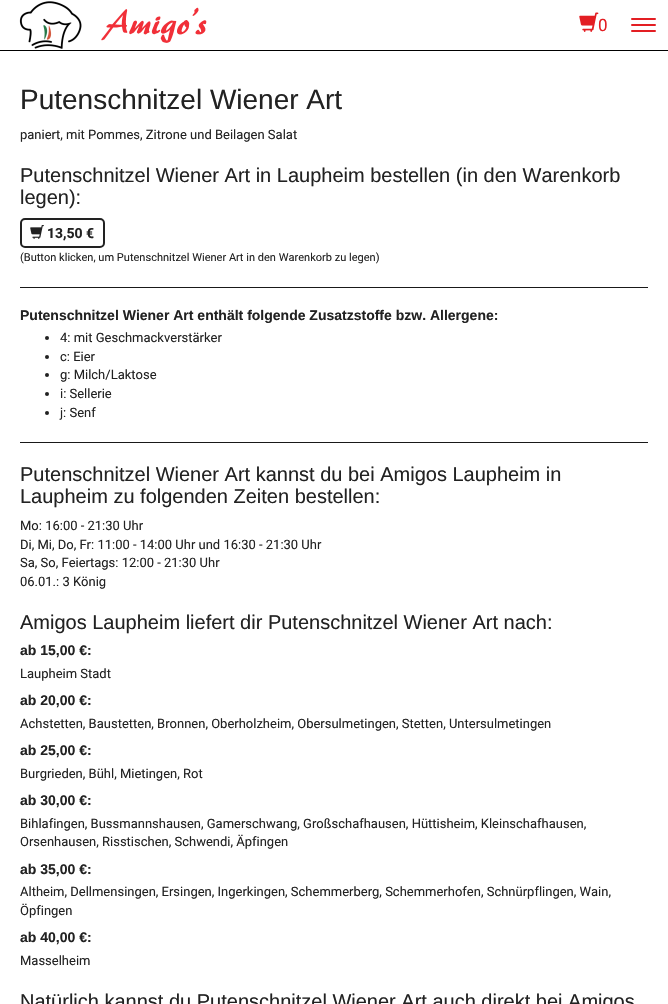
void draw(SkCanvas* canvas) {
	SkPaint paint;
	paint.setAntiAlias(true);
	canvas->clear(0xffffffff);
	paint.setColor(0xff000000);
	canvas->drawRect(SkRect::MakeXYWH(0, 50, 668, 1), paint);
	canvas->drawImageRect(SkImages::DeferredFromEncodedData(SkData::MakeFromFileName("img1.png")), SkRect::MakeXYWH(19, 1, 188, 48), SkSamplingOptions());
	canvas->drawImageRect(SkImages::DeferredFromEncodedData(SkData::MakeFromFileName("img2.png")), SkRect::MakeXYWH(579, 12, 20, 20), SkSamplingOptions());
	SkFont f1(fontMgr->matchFamilyStyle("Roboto", SkFontStyle::Normal()), 17);
	f1.setSubpixel(true);
	paint.setColor(0xffe31e23);
	canvas->drawString("0", 598, 31, f1, paint);
	canvas->drawRoundRect(SkRect::MakeXYWH(631, 18, 25, 2), 1, 1, paint);
	canvas->drawRoundRect(SkRect::MakeXYWH(631, 24, 25, 2), 1, 1, paint);
	canvas->drawRoundRect(SkRect::MakeXYWH(631, 30, 25, 2), 1, 1, paint);
	SkFont f2(fontMgr->matchFamilyStyle("Liberation Sans", SkFontStyle::Normal()), 28);
	f2.setSubpixel(true);
	paint.setColor(0xff222222);
	canvas->drawString("Putenschnitzel Wiener Art", 20, 109, f2, paint);
	SkFont f3(fontMgr->matchFamilyStyle("Roboto", SkFontStyle::Normal()), 13);
	f3.setSubpixel(true);
	canvas->drawString("paniert, mit Pommes, Zitrone und Beilagen Salat", 20, 139, f3, paint);
	SkFont f4(fontMgr->matchFamilyStyle("Liberation Sans", SkFontStyle::Normal()), 20);
	f4.setSubpixel(true);
	canvas->drawString("Putenschnitzel Wiener Art in Laupheim bestellen (in den Warenkorb", 20, 182, f4, paint);
	canvas->drawString("legen):", 20, 204, f4, paint);
	paint.setStroke(true);
	paint.setStrokeWidth(2);
	canvas->drawRoundRect(SkRect::MakeXYWH(21, 219, 83, 28), 4, 4, paint);
	canvas->drawImageRect(SkImages::DeferredFromEncodedData(SkData::MakeFromFileName("img3.png")), SkRect::MakeXYWH(30, 225, 14, 14), SkSamplingOptions());
	SkFont f5(fontMgr->matchFamilyStyle("Roboto", SkFontStyle::Bold()), 14);
	f5.setSubpixel(true);
	paint.setStroke(false);
	canvas->drawString("13,50 €", 47, 238, f5, paint);
	SkFont f6(fontMgr->matchFamilyStyle("Roboto", SkFontStyle::Normal()), 11.05);
	f6.setSubpixel(true);
	canvas->drawString("(Button klicken, um Putenschnitzel Wiener Art in den Warenkorb zu legen)", 20, 261, f6, paint);
	paint.setColor(0xff191919);
	canvas->drawRect(SkRect::MakeXYWH(20, 287, 628, 1), paint);
	SkFont f7(fontMgr->matchFamilyStyle("Liberation Sans", SkFontStyle::Bold()), 14);
	f7.setSubpixel(true);
	paint.setColor(0xff222222);
	canvas->drawString("Putenschnitzel Wiener Art enthält folgende Zusatzstoffe bzw. Allergene:", 20, 320, f7, paint);
	canvas->drawCircle(47, 338, 2, paint);
	canvas->drawString("4: mit Geschmackverstärker", 60, 342, f3, paint);
	canvas->drawCircle(47, 357, 2, paint);
	canvas->drawString("c: Eier", 60, 361, f3, paint);
	canvas->drawCircle(47, 375, 2, paint);
	canvas->drawString("g: Milch/Laktose", 60, 379, f3, paint);
	canvas->drawCircle(47, 394, 2, paint);
	canvas->drawString("i: Sellerie", 60, 398, f3, paint);
	canvas->drawCircle(47, 413, 2, paint);
	canvas->drawString("j: Senf", 60, 417, f3, paint);
	paint.setColor(0xff191919);
	canvas->drawRect(SkRect::MakeXYWH(20, 442, 628, 1), paint);
	paint.setColor(0xff222222);
	canvas->drawString("Putenschnitzel Wiener Art kannst du bei Amigos Laupheim in", 20, 481, f4, paint);
	canvas->drawString("Laupheim zu folgenden Zeiten bestellen:", 20, 503, f4, paint);
	canvas->drawString("Mo: 16:00 - 21:30 Uhr", 20, 530, f3, paint);
	canvas->drawString("Di, Mi, Do, Fr: 11:00 - 14:00 Uhr und 16:30 - 21:30 Uhr", 20, 549, f3, paint);
	canvas->drawString("Sa, So, Feiertags: 12:00 - 21:30 Uhr", 20, 567, f3, paint);
	canvas->drawString("06.01.: 3 König", 20, 586, f3, paint);
	canvas->drawString("Amigos Laupheim liefert dir Putenschnitzel Wiener Art nach:", 20, 629, f4, paint);
	canvas->drawString("ab 15,00 €:", 20, 655, f7, paint);
	canvas->drawString("Laupheim Stadt", 20, 678, f3, paint);
	canvas->drawString("ab 20,00 €:", 20, 705, f7, paint);
	canvas->drawString("Achstetten, Baustetten, Bronnen, Oberholzheim, Obersulmetingen, Stetten, Untersulmetingen", 20, 728, f3, paint);
	canvas->drawString("ab 25,00 €:", 20, 755, f7, paint);
	canvas->drawString("Burgrieden, Bühl, Mietingen, Rot", 20, 778, f3, paint);
	canvas->drawString("ab 30,00 €:", 20, 805, f7, paint);
	canvas->drawString("Bihlafingen, Bussmannshausen, Gamerschwang, Großschafhausen, Hüttisheim, Kleinschafhausen,", 20, 828, f3, paint);
	canvas->drawString("Orsenhausen, Risstischen, Schwendi, Äpfingen", 20, 846, f3, paint);
	canvas->drawString("ab 35,00 €:", 20, 874, f7, paint);
	canvas->drawString("Altheim, Dellmensingen, Ersingen, Ingerkingen, Schemmerberg, Schemmerhofen, Schnürpflingen, Wain,", 20, 896, f3, paint);
	canvas->drawString("Öpfingen", 20, 915, f3, paint);
	canvas->drawString("ab 40,00 €:", 20, 942, f7, paint);
	canvas->drawString("Masselheim", 20, 965, f3, paint);
	canvas->drawString("Natürlich kannst du Putenschnitzel Wiener Art auch direkt bei Amigos", 20, 1008, f4, paint);
}
